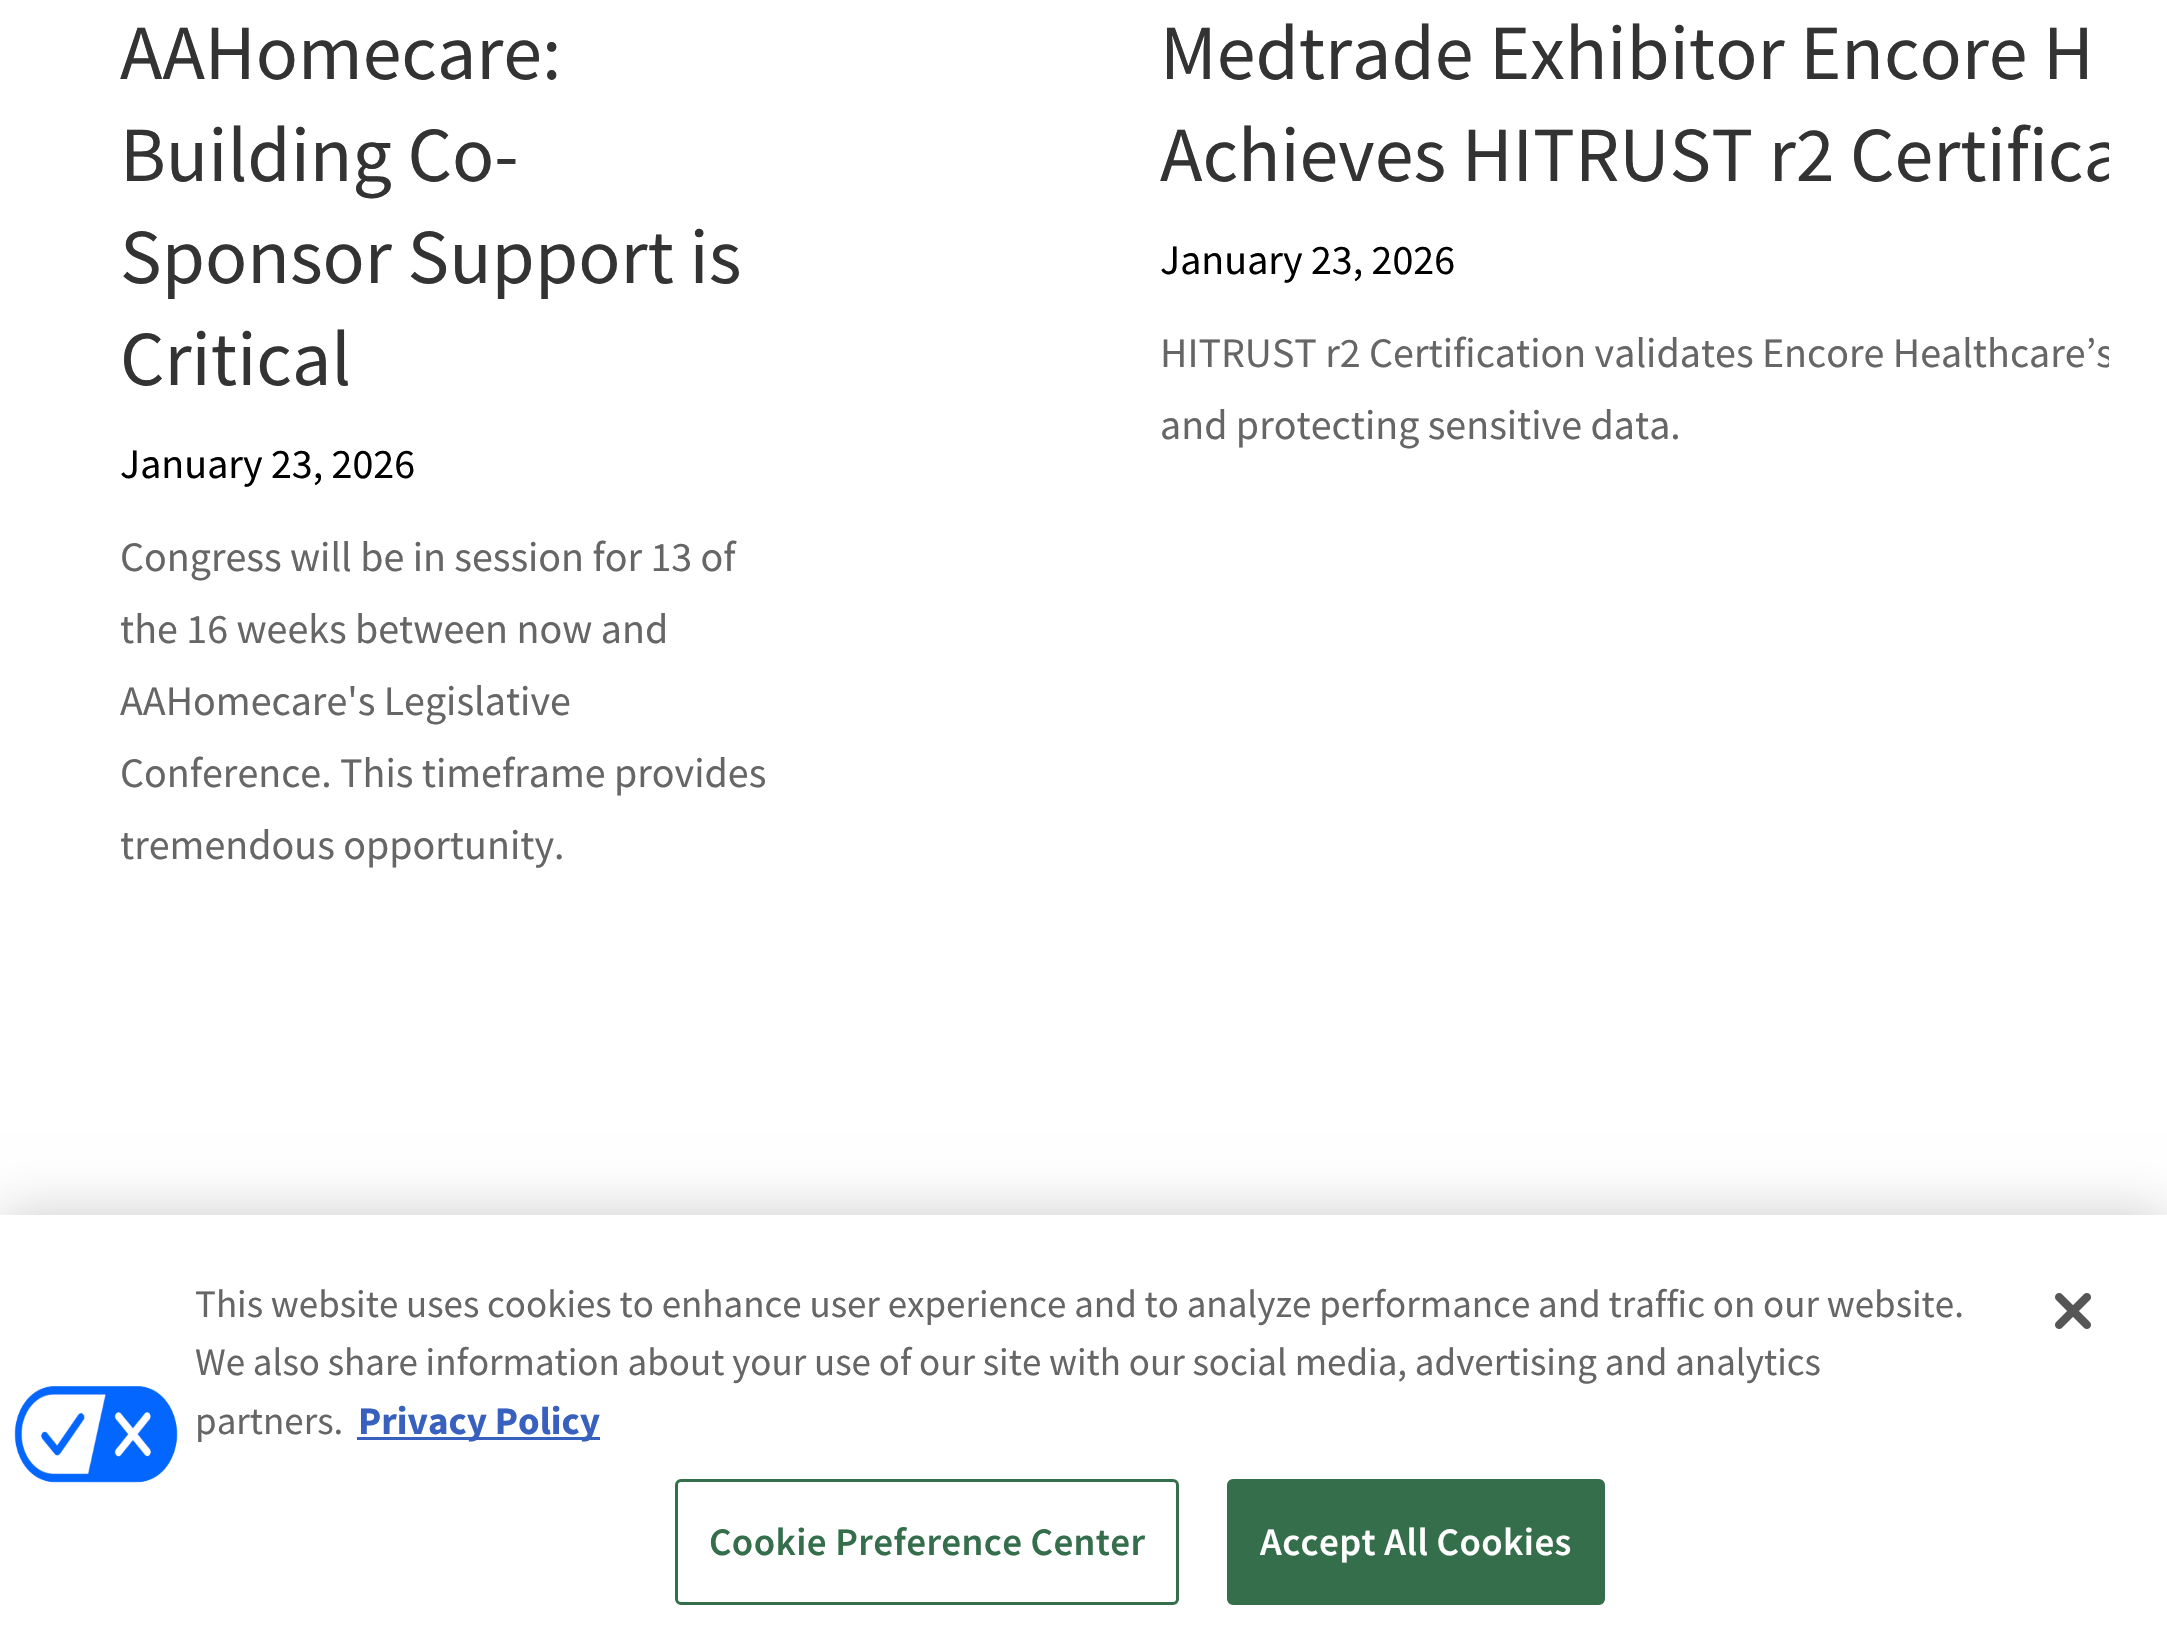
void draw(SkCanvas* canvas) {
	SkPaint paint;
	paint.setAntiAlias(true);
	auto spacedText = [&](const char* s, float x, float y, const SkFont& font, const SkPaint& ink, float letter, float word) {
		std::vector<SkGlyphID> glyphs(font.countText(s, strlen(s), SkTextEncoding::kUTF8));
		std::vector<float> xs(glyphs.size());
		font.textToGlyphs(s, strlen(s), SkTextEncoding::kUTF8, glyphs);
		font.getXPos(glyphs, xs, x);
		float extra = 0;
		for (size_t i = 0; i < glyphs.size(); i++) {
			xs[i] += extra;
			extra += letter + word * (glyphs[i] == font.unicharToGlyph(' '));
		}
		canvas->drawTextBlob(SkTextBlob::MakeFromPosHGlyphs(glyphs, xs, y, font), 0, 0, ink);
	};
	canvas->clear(0xffffffff);
	SkFont f1(fontMgr->matchFamilyStyle("Source Sans Pro", SkFontStyle::Normal()), 78);
	f1.setSubpixel(true);
	paint.setColor(0xff333333);
	canvas->drawString("AAHomecare:", 120, 79, f1, paint);
	canvas->drawString("Building Co-", 120, 181, f1, paint);
	canvas->drawString("Sponsor Support is", 120, 283, f1, paint);
	canvas->drawString("Critical", 120, 385, f1, paint);
	SkFont f2(fontMgr->matchFamilyStyle("Source Sans Pro", SkFontStyle::Normal()), 42);
	f2.setSubpixel(true);
	paint.setColor(0xff000000);
	canvas->drawString("January 23, 2026", 120, 478, f2, paint);
	paint.setColor(0xff666666);
	canvas->drawString("Congress will be in session for 13 of", 120, 571, f2, paint);
	canvas->drawString("the 16 weeks between now and", 120, 643, f2, paint);
	canvas->drawString("AAHomecare's Legislative", 120, 715, f2, paint);
	canvas->drawString("Conference. This timeframe provides", 120, 787, f2, paint);
	canvas->drawString("tremendous opportunity.", 120, 859, f2, paint);
	paint.setColor(0xff333333);
	canvas->drawString("Medtrade Exhibitor Encore H", 1160, 79, f1, paint);
	canvas->save();
	canvas->clipRect(SkRect::MakeXYWH(60, 0, 2049, 939));
	canvas->drawString("Achieves HITRUST r2 Certifica", 1160, 181, f1, paint);
	canvas->restore();
	paint.setColor(0xff000000);
	canvas->drawString("January 23, 2026", 1160, 274, f2, paint);
	canvas->save();
	canvas->clipRect(SkRect::MakeXYWH(60, 0, 2049, 939));
	paint.setColor(0xff666666);
	canvas->drawString("HITRUST r2 Certification validates Encore Healthcare’s", 1160, 367, f2, paint);
	canvas->restore();
	canvas->drawString("and protecting sensitive data.", 1160, 439, f2, paint);
	paint.setColor(0x33000000);
	paint.setMaskFilter(SkMaskFilter::MakeBlur(kNormal_SkBlurStyle, 27));
	canvas->drawRect(SkRect::MakeXYWH(0, 1215, 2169, 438), paint);
	paint.setMaskFilter(nullptr);
	paint.setColor(0xffffffff);
	canvas->drawRect(SkRect::MakeXYWH(0, 1215, 2167, 436), paint);
	canvas->drawImageRect(SkImages::DeferredFromEncodedData(SkData::MakeFromFileName("img1.png")), SkRect::MakeXYWH(14, 1386, 164, 97), SkSamplingOptions());
	SkFont f3(fontMgr->matchFamilyStyle("Source Sans Pro", SkFontStyle::Normal()), 39);
	f3.setSubpixel(true);
	paint.setColor(0xff666666);
	canvas->drawString("This website uses cookies to enhance user experience and to analyze performance and traffic on our website.", 195, 1317, f3, paint);
	canvas->drawString("We also share information about your use of our site with our social media, advertising and analytics", 195, 1375, f3, paint);
	canvas->drawString("partners.", 195, 1434, f3, paint);
	paint.setColor(0xff3860be);
	canvas->drawRect(SkRect::MakeXYWH(357, 1437, 243, 3), paint);
	SkFont f4(fontMgr->matchFamilyStyle("Source Sans Pro", SkFontStyle::Bold()), 39);
	f4.setSubpixel(true);
	canvas->drawString("Privacy Policy", 358, 1434, f4, paint);
	paint.setStroke(true);
	paint.setStrokeWidth(3);
	paint.setColor(0xff346e4a);
	canvas->drawRoundRect(SkRect::MakeXYWH(676.5, 1480.5, 501, 123), 4.5, 4.5, paint);
	SkFont f5(fontMgr->matchFamilyStyle("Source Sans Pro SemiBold", SkFontStyle(600, SkFontStyle::kNormal_Width, SkFontStyle::kUpright_Slant)), 39);
	f5.setSubpixel(true);
	paint.setStroke(false);
	spacedText("Cookie Preference Center", 709, 1555, f5, paint, 0.4, 0);
	canvas->drawRoundRect(SkRect::MakeXYWH(1228.5, 1480.5, 375, 123), 4.5, 4.5, paint);
	paint.setStroke(true);
	canvas->drawRoundRect(SkRect::MakeXYWH(1228.5, 1480.5, 375, 123), 4.5, 4.5, paint);
	paint.setStroke(false);
	paint.setColor(0xffffffff);
	spacedText("Accept All Cookies", 1260, 1555, f5, paint, 0.4, 0);
	canvas->drawImageRect(SkImages::DeferredFromEncodedData(SkData::MakeFromFileName("img2.png")), SkRect::MakeXYWH(2055, 1293, 36, 36), SkSamplingOptions());
}
